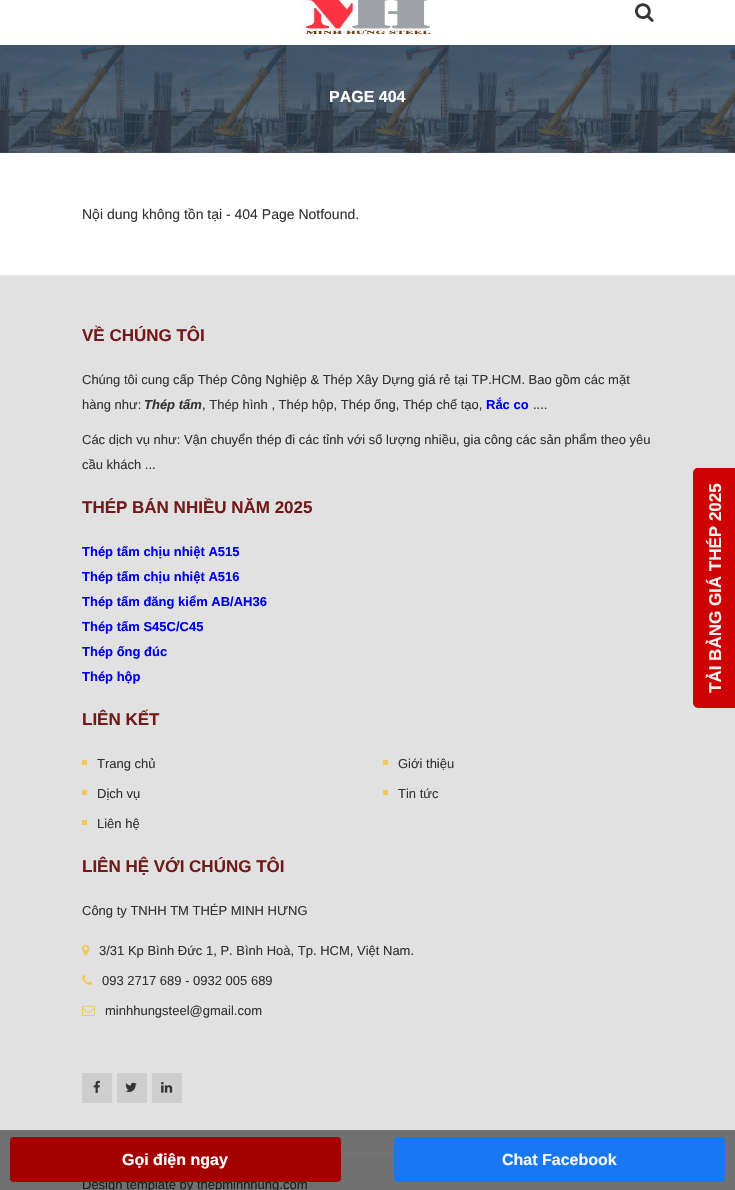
void draw(SkCanvas* canvas) {
	SkPaint paint;
	paint.setAntiAlias(true);
	auto svgPath = [&](const char* data, bool evenOdd = false) {
		SkPath result = *SkParsePath::FromSVGString(data);
		if (evenOdd) result.setFillType(SkPathFillType::kEvenOdd);
		return result;
	};
	canvas->clear(0xffffffff);
	canvas->drawImageRect(SkImages::DeferredFromEncodedData(SkData::MakeFromFileName("img1.png")), SkRect::MakeXYWH(301, 0, 134, 35), SkSamplingOptions());
	canvas->drawImageRect(SkImages::DeferredFromEncodedData(SkData::MakeFromFileName("img2.png")), SkRect::MakeXYWH(635, 3, 19, 19), SkSamplingOptions());
	canvas->drawImageRect(SkImages::DeferredFromEncodedData(SkData::MakeFromFileName("img3.png")), SkRect::MakeXYWH(0, 45, 735, 108), SkSamplingOptions());
	SkFont f1(fontMgr->matchFamilyStyle("Liberation Sans", SkFontStyle::Bold()), 16);
	f1.setSubpixel(true);
	paint.setColor(0xffffffff);
	canvas->drawString("PAGE 404", 329, 102, f1, paint);
	SkFont f2(fontMgr->matchFamilyStyle("Liberation Sans", SkFontStyle::Normal()), 14);
	f2.setSubpixel(true);
	paint.setColor(0xff333333);
	canvas->drawString("Nội dung không tồn tại - 404 Page Notfound.", 82, 219, f2, paint);
	paint.setColor(0xffe1e1e1);
	canvas->drawRect(SkRect::MakeXYWH(0, 275, 735, 855), paint);
	paint.setColor(0xff717171);
	canvas->drawRect(SkRect::MakeXYWH(0, 1130, 735, 60), paint);
	SkFont f3(fontMgr->matchFamilyStyle("Liberation Sans", SkFontStyle::Bold()), 17);
	f3.setSubpixel(true);
	paint.setColor(0xff721919);
	canvas->drawString("VỀ CHÚNG TÔI", 82, 341, f3, paint);
	SkFont f4(fontMgr->matchFamilyStyle("Liberation Sans", SkFontStyle::Normal()), 13);
	f4.setSubpixel(true);
	paint.setColor(0xff333333);
	canvas->drawString("Chúng tôi cung cấp Thép Công Nghiệp & Thép Xây Dựng giá rẻ tại TP.HCM. Bao gồm các mặt", 82, 384, f4, paint);
	canvas->drawString("hàng như:", 82, 409, f4, paint);
	SkFont f5(fontMgr->matchFamilyStyle("Liberation Sans", SkFontStyle::BoldItalic()), 13);
	f5.setSubpixel(true);
	canvas->drawString("Thép tấm", 144, 409, f5, paint);
	canvas->drawString(", Thép hình , Thép hộp, Thép ống, Thép chế tạo,", 202, 409, f4, paint);
	SkFont f6(fontMgr->matchFamilyStyle("Liberation Sans", SkFontStyle::Bold()), 13);
	f6.setSubpixel(true);
	paint.setColor(0xff0000ee);
	canvas->drawString("Rắc co", 486, 409, f6, paint);
	paint.setColor(0xff333333);
	canvas->drawString("....", 533, 409, f4, paint);
	canvas->drawString("Các dịch vụ như: Vận chuyển thép đi các tỉnh với số lượng nhiều, gia công các sản phẩm theo yêu", 82, 444, f4, paint);
	canvas->drawString("cầu khách ...", 82, 469, f4, paint);
	paint.setColor(0xff721919);
	canvas->drawString("THÉP BÁN NHIỀU NĂM 2025", 82, 513, f3, paint);
	paint.setColor(0xff0000ee);
	canvas->drawString("Thép tấm chịu nhiệt A515", 82, 556, f6, paint);
	canvas->drawString("Thép tấm chịu nhiệt A516", 82, 581, f6, paint);
	canvas->drawString("Thép tấm đăng kiểm AB/AH36", 82, 606, f6, paint);
	canvas->drawString("Thép tấm S45C/C45", 82, 631, f6, paint);
	canvas->drawString("Thép ống đúc", 82, 656, f6, paint);
	canvas->drawString("Thép hộp", 82, 681, f6, paint);
	paint.setColor(0xff721919);
	canvas->drawString("LIÊN KẾT", 82, 725, f3, paint);
	paint.setColor(0xfff2ca51);
	canvas->drawRect(SkRect::MakeXYWH(82, 760, 5, 5), paint);
	paint.setColor(0xff333333);
	canvas->drawString("Trang chủ", 97, 768, f4, paint);
	paint.setColor(0xfff2ca51);
	canvas->drawRect(SkRect::MakeXYWH(383, 760, 5, 5), paint);
	paint.setColor(0xff333333);
	canvas->drawString("Giới thiệu", 398, 768, f4, paint);
	paint.setColor(0xfff2ca51);
	canvas->drawRect(SkRect::MakeXYWH(82, 790, 5, 5), paint);
	paint.setColor(0xff333333);
	canvas->drawString("Dịch vụ", 97, 798, f4, paint);
	paint.setColor(0xfff2ca51);
	canvas->drawRect(SkRect::MakeXYWH(383, 790, 5, 5), paint);
	paint.setColor(0xff333333);
	canvas->drawString("Tin tức", 398, 798, f4, paint);
	paint.setColor(0xfff2ca51);
	canvas->drawRect(SkRect::MakeXYWH(82, 820, 5, 5), paint);
	paint.setColor(0xff333333);
	canvas->drawString("Liên hệ", 97, 828, f4, paint);
	paint.setColor(0xff721919);
	canvas->drawString("LIÊN HỆ VỚI CHÚNG TÔI", 82, 872, f3, paint);
	paint.setColor(0xff333333);
	canvas->drawString("Công ty TNHH TM THÉP MINH HƯNG", 82, 915, f4, paint);
	canvas->drawImageRect(SkImages::DeferredFromEncodedData(SkData::MakeFromFileName("img4.png")), SkRect::MakeXYWH(82, 944, 8, 12), SkSamplingOptions());
	canvas->drawString("3/31 Kp Bình Đức 1, P. Bình Hoà, Tp. HCM, Việt Nam.", 99, 955, f4, paint);
	canvas->drawImageRect(SkImages::DeferredFromEncodedData(SkData::MakeFromFileName("img5.png")), SkRect::MakeXYWH(82, 974, 11, 11), SkSamplingOptions());
	canvas->drawString("093 2717 689 - 0932 005 689", 102, 985, f4, paint);
	canvas->drawImageRect(SkImages::DeferredFromEncodedData(SkData::MakeFromFileName("img6.png")), SkRect::MakeXYWH(82, 1005, 13, 11), SkSamplingOptions());
	canvas->drawString("minhhungsteel@gmail.com", 105, 1015, f4, paint);
	paint.setColor(0xffcecece);
	canvas->drawRect(SkRect::MakeXYWH(82, 1073, 30, 30), paint);
	canvas->drawImageRect(SkImages::DeferredFromEncodedData(SkData::MakeFromFileName("img7.png")), SkRect::MakeXYWH(93, 1080, 7, 13), SkSamplingOptions());
	canvas->drawRect(SkRect::MakeXYWH(117, 1073, 30, 30), paint);
	canvas->drawImageRect(SkImages::DeferredFromEncodedData(SkData::MakeFromFileName("img8.png")), SkRect::MakeXYWH(125, 1082, 12, 10), SkSamplingOptions());
	canvas->drawRect(SkRect::MakeXYWH(152, 1073, 30, 30), paint);
	canvas->drawImageRect(SkImages::DeferredFromEncodedData(SkData::MakeFromFileName("img9.png")), SkRect::MakeXYWH(161, 1081, 12, 12), SkSamplingOptions());
	paint.setColor(0xff777676);
	canvas->drawRect(SkRect::MakeXYWH(341, 1153, 53, 1), paint);
	paint.setColor(0xff1a1a1a);
	canvas->drawString("Design template by thepminhhung.com", 82, 1189, f4, paint);
	paint.setColor(0xffce0202);
	canvas->drawPath(svgPath("M693 703V473C693 470 695 468 698 468H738V708H698C695 708 693 705 693 703Z"), paint);
	paint.setColor(0xfff1f1f1);
	canvas->save();
	canvas->rotate(-90, 721, 693);
	canvas->drawString("TẢI BẢNG GIÁ THÉP 2025", 721, 693, f3, paint);
	canvas->restore();
	paint.setColor(0xffa50000);
	canvas->drawRoundRect(SkRect::MakeXYWH(10, 1137, 331, 45), 4, 4, paint);
	paint.setColor(0xffffffff);
	canvas->drawString("Gọi điện ngay", 122, 1165, f1, paint);
	paint.setColor(0xff1877f2);
	canvas->drawRoundRect(SkRect::MakeXYWH(394, 1137, 331, 45), 4, 4, paint);
	paint.setColor(0xfff5f6f7);
	canvas->drawString("Chat Facebook", 502, 1165, f1, paint);
}
